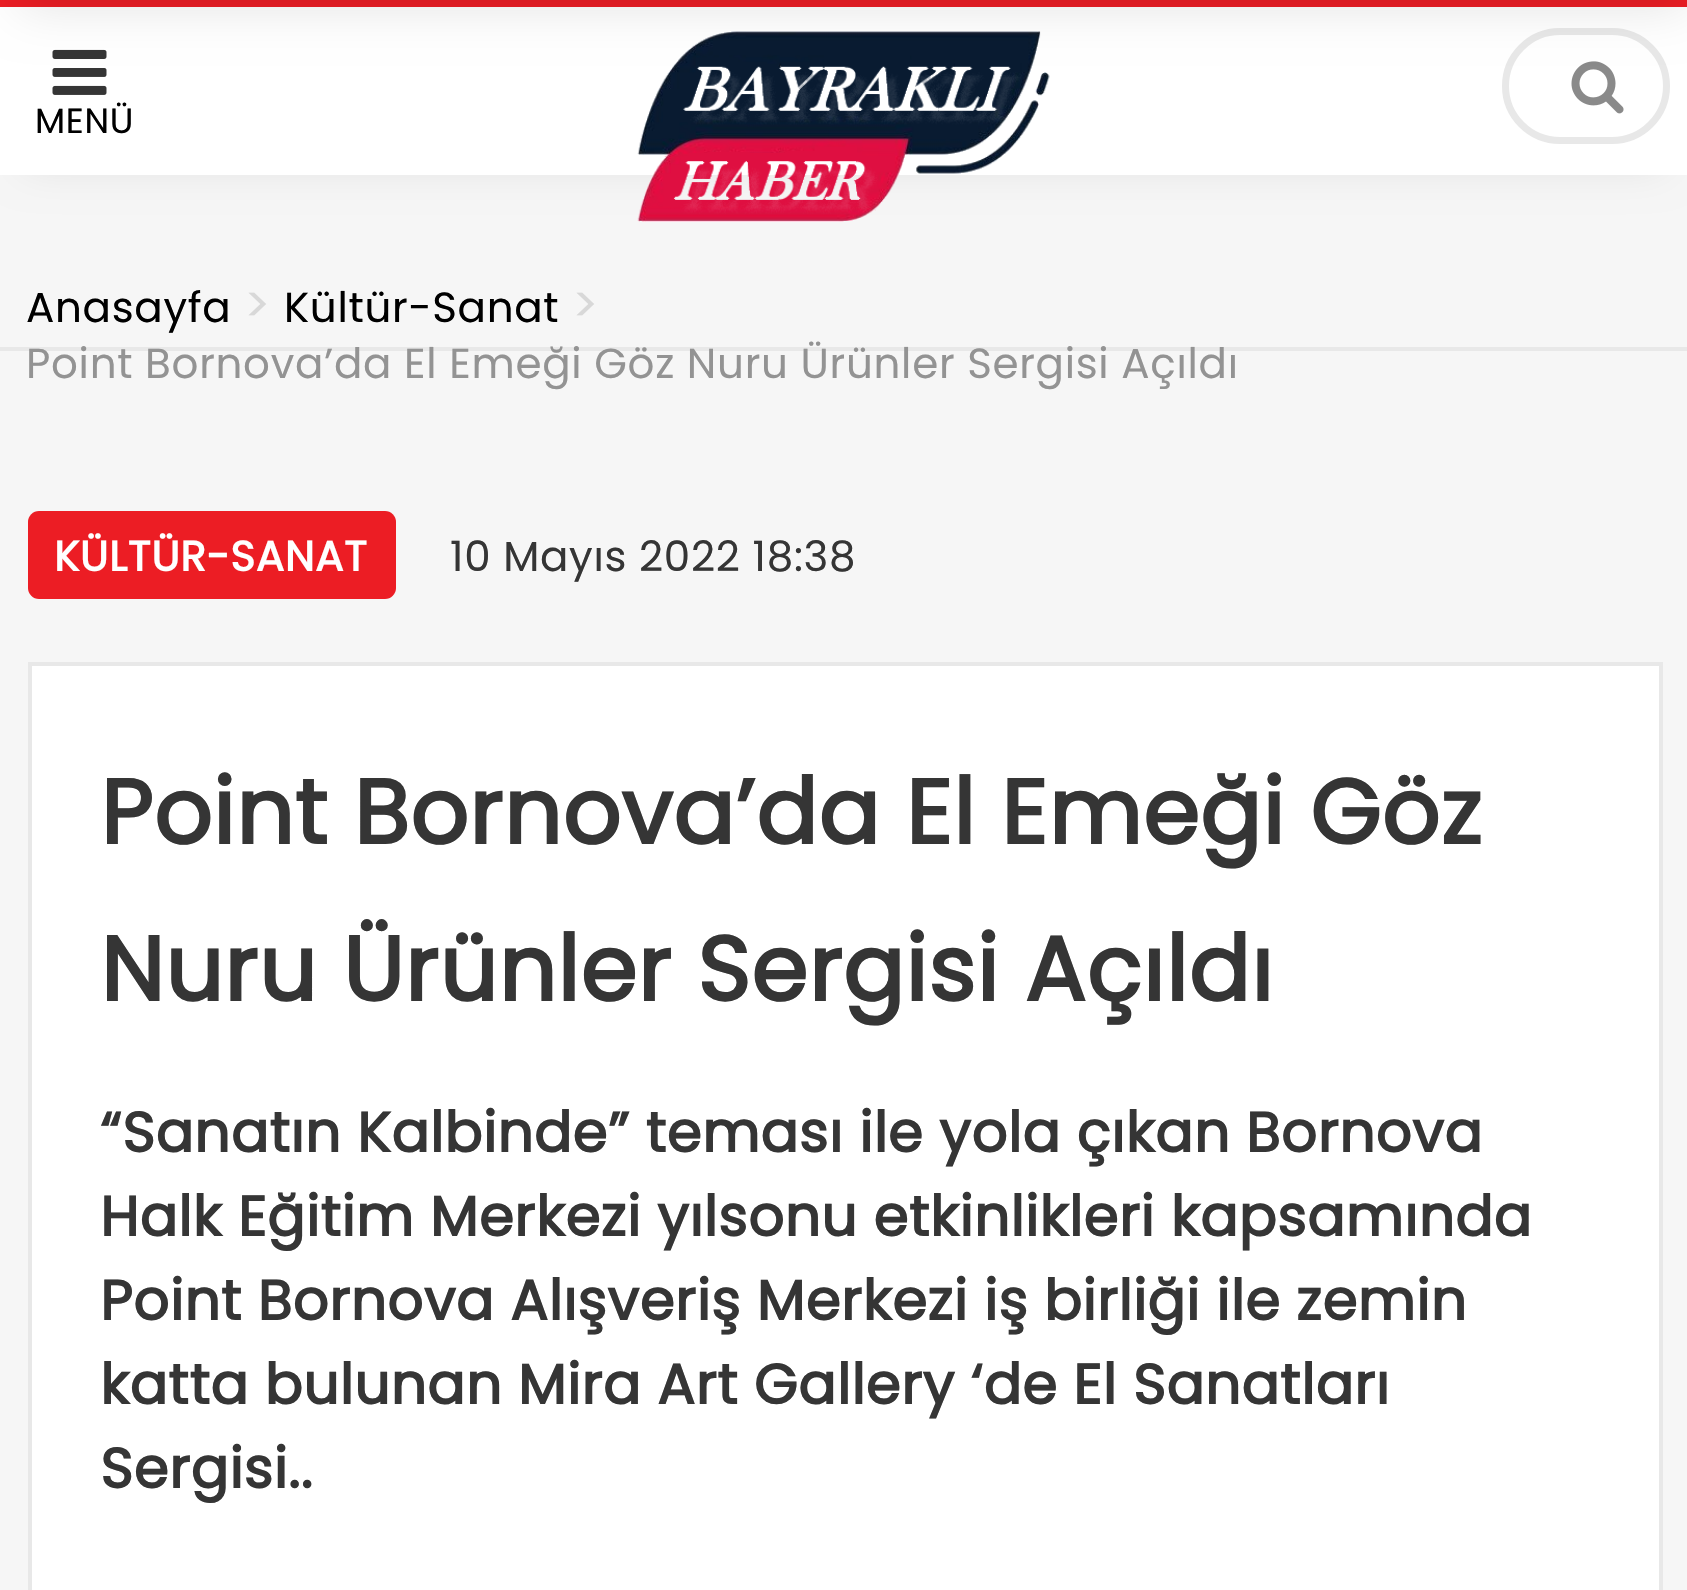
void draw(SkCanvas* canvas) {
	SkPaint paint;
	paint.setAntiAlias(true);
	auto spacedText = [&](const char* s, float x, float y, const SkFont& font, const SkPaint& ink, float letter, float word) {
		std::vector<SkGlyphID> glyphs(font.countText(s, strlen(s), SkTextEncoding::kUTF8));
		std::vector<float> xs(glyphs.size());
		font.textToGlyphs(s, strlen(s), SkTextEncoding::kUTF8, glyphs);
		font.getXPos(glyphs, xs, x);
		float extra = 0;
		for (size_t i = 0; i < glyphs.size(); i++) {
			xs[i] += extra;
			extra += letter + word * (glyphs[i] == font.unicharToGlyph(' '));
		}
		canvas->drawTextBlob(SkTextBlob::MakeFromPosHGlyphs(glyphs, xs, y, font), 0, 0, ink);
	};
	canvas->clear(0xfff6f6f6);
	paint.setColor(0xffec1d24);
	canvas->drawRect(SkRect::MakeXYWH(0, 0, 1687, 7), paint);
	paint.setColor(0x1a000000);
	paint.setMaskFilter(SkMaskFilter::MakeBlur(kNormal_SkBlurStyle, 21));
	canvas->drawRect(SkRect::MakeXYWH(25, 46, 1638, 119), paint);
	paint.setMaskFilter(nullptr);
	paint.setColor(0xffffffff);
	canvas->drawRect(SkRect::MakeXYWH(0, 7, 1687, 168), paint);
	canvas->drawImageRect(SkImages::DeferredFromEncodedData(SkData::MakeFromFileName("img1.png")), SkRect::MakeXYWH(52, 49, 55, 46), SkSamplingOptions());
	canvas->drawImageRect(SkImages::DeferredFromEncodedData(SkData::MakeFromFileName("img2.png")), SkRect::MakeXYWH(637, 31, 413, 191), SkSamplingOptions());
	paint.setStroke(true);
	paint.setStrokeWidth(7);
	paint.setColor(0xffe8e8e8);
	canvas->drawRoundRect(SkRect::MakeXYWH(1505.5, 31.5, 161, 109), 54.5, 54.5, paint);
	canvas->drawImageRect(SkImages::DeferredFromEncodedData(SkData::MakeFromFileName("img3.png")), SkRect::MakeXYWH(1571, 61, 53, 53), SkSamplingOptions());
	paint.setStroke(false);
	paint.setColor(0x1c000000);
	paint.setMaskFilter(SkMaskFilter::MakeBlur(kNormal_SkBlurStyle, 24.5));
	canvas->drawRect(SkRect::MakeXYWH(21, -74, 1666, 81), paint);
	paint.setMaskFilter(nullptr);
	SkFont f1(fontMgr->matchFamilyStyle("Poppins", SkFontStyle::Normal()), 35);
	f1.setSubpixel(true);
	paint.setColor(0xff000000);
	spacedText("MENÜ", 35, 133, f1, paint, 0.7, 0);
	paint.setColor(0xffe8e8e8);
	canvas->drawRect(SkRect::MakeXYWH(0, 347, 1687, 4), paint);
	SkFont f2(fontMgr->matchFamilyStyle("Poppins", SkFontStyle::Normal()), 42);
	f2.setSubpixel(true);
	paint.setColor(0xff000000);
	spacedText("Anasayfa", 26, 322, f2, paint, 0.7, 0);
	SkFont f3(fontMgr->matchFamilyStyle("Poppins", SkFontStyle::Normal()), 49);
	f3.setSubpixel(true);
	paint.setColor(0xffd8d8d8);
	spacedText(">", 244, 322, f3, paint, 0.7, 0);
	paint.setColor(0xff000000);
	spacedText("Kültür-Sanat", 284, 322, f2, paint, 0.7, 0);
	paint.setColor(0xffd8d8d8);
	spacedText(">", 572, 322, f3, paint, 0.7, 0);
	paint.setColor(0xff939393);
	spacedText("Point Bornova’da El Emeği Göz Nuru Ürünler Sergisi Açıldı", 26, 378, f2, paint, 0.7, 0);
	paint.setColor(0xffec1d24);
	canvas->drawRoundRect(SkRect::MakeXYWH(28, 511, 368, 88), 11, 11, paint);
	SkFont f4(fontMgr->matchFamilyStyle("Poppins", SkFontStyle::Bold()), 42);
	f4.setSubpixel(true);
	paint.setColor(0xffffffff);
	spacedText("KÜLTÜR-SANAT", 54, 571, f4, paint, 0.7, 0);
	paint.setColor(0xff353535);
	spacedText("10 Mayıs 2022 18:38", 450, 571, f2, paint, 0.7, 0);
	paint.setColor(0xffffffff);
	canvas->drawRect(SkRect::MakeXYWH(30, 664, 1631, 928), paint);
	paint.setStroke(true);
	paint.setStrokeWidth(4);
	paint.setColor(0xffe8e8e8);
	canvas->drawRect(SkRect::MakeXYWH(30, 664, 1631, 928), paint);
	SkFont f5(fontMgr->matchFamilyStyle("Poppins", SkFontStyle::Bold()), 91);
	f5.setSubpixel(true);
	paint.setStroke(false);
	paint.setColor(0xff353535);
	spacedText("Point Bornova’da El Emeği Göz", 100, 844, f5, paint, 0.7, 0);
	spacedText("Nuru Ürünler Sergisi Açıldı", 100, 1001, f5, paint, 0.7, 0);
	SkFont f6(fontMgr->matchFamilyStyle("Poppins", SkFontStyle::Bold()), 56);
	f6.setSubpixel(true);
	spacedText("“Sanatın Kalbinde” teması ile yola çıkan Bornova", 100, 1152, f6, paint, 0.7, 0);
	spacedText("Halk Eğitim Merkezi yılsonu etkinlikleri kapsamında", 100, 1236, f6, paint, 0.7, 0);
	spacedText("Point Bornova Alışveriş Merkezi iş birliği ile zemin", 100, 1320, f6, paint, 0.7, 0);
	spacedText("katta bulunan Mira Art Gallery ‘de El Sanatları", 100, 1404, f6, paint, 0.7, 0);
	spacedText("Sergisi..", 100, 1488, f6, paint, 0.7, 0);
}
